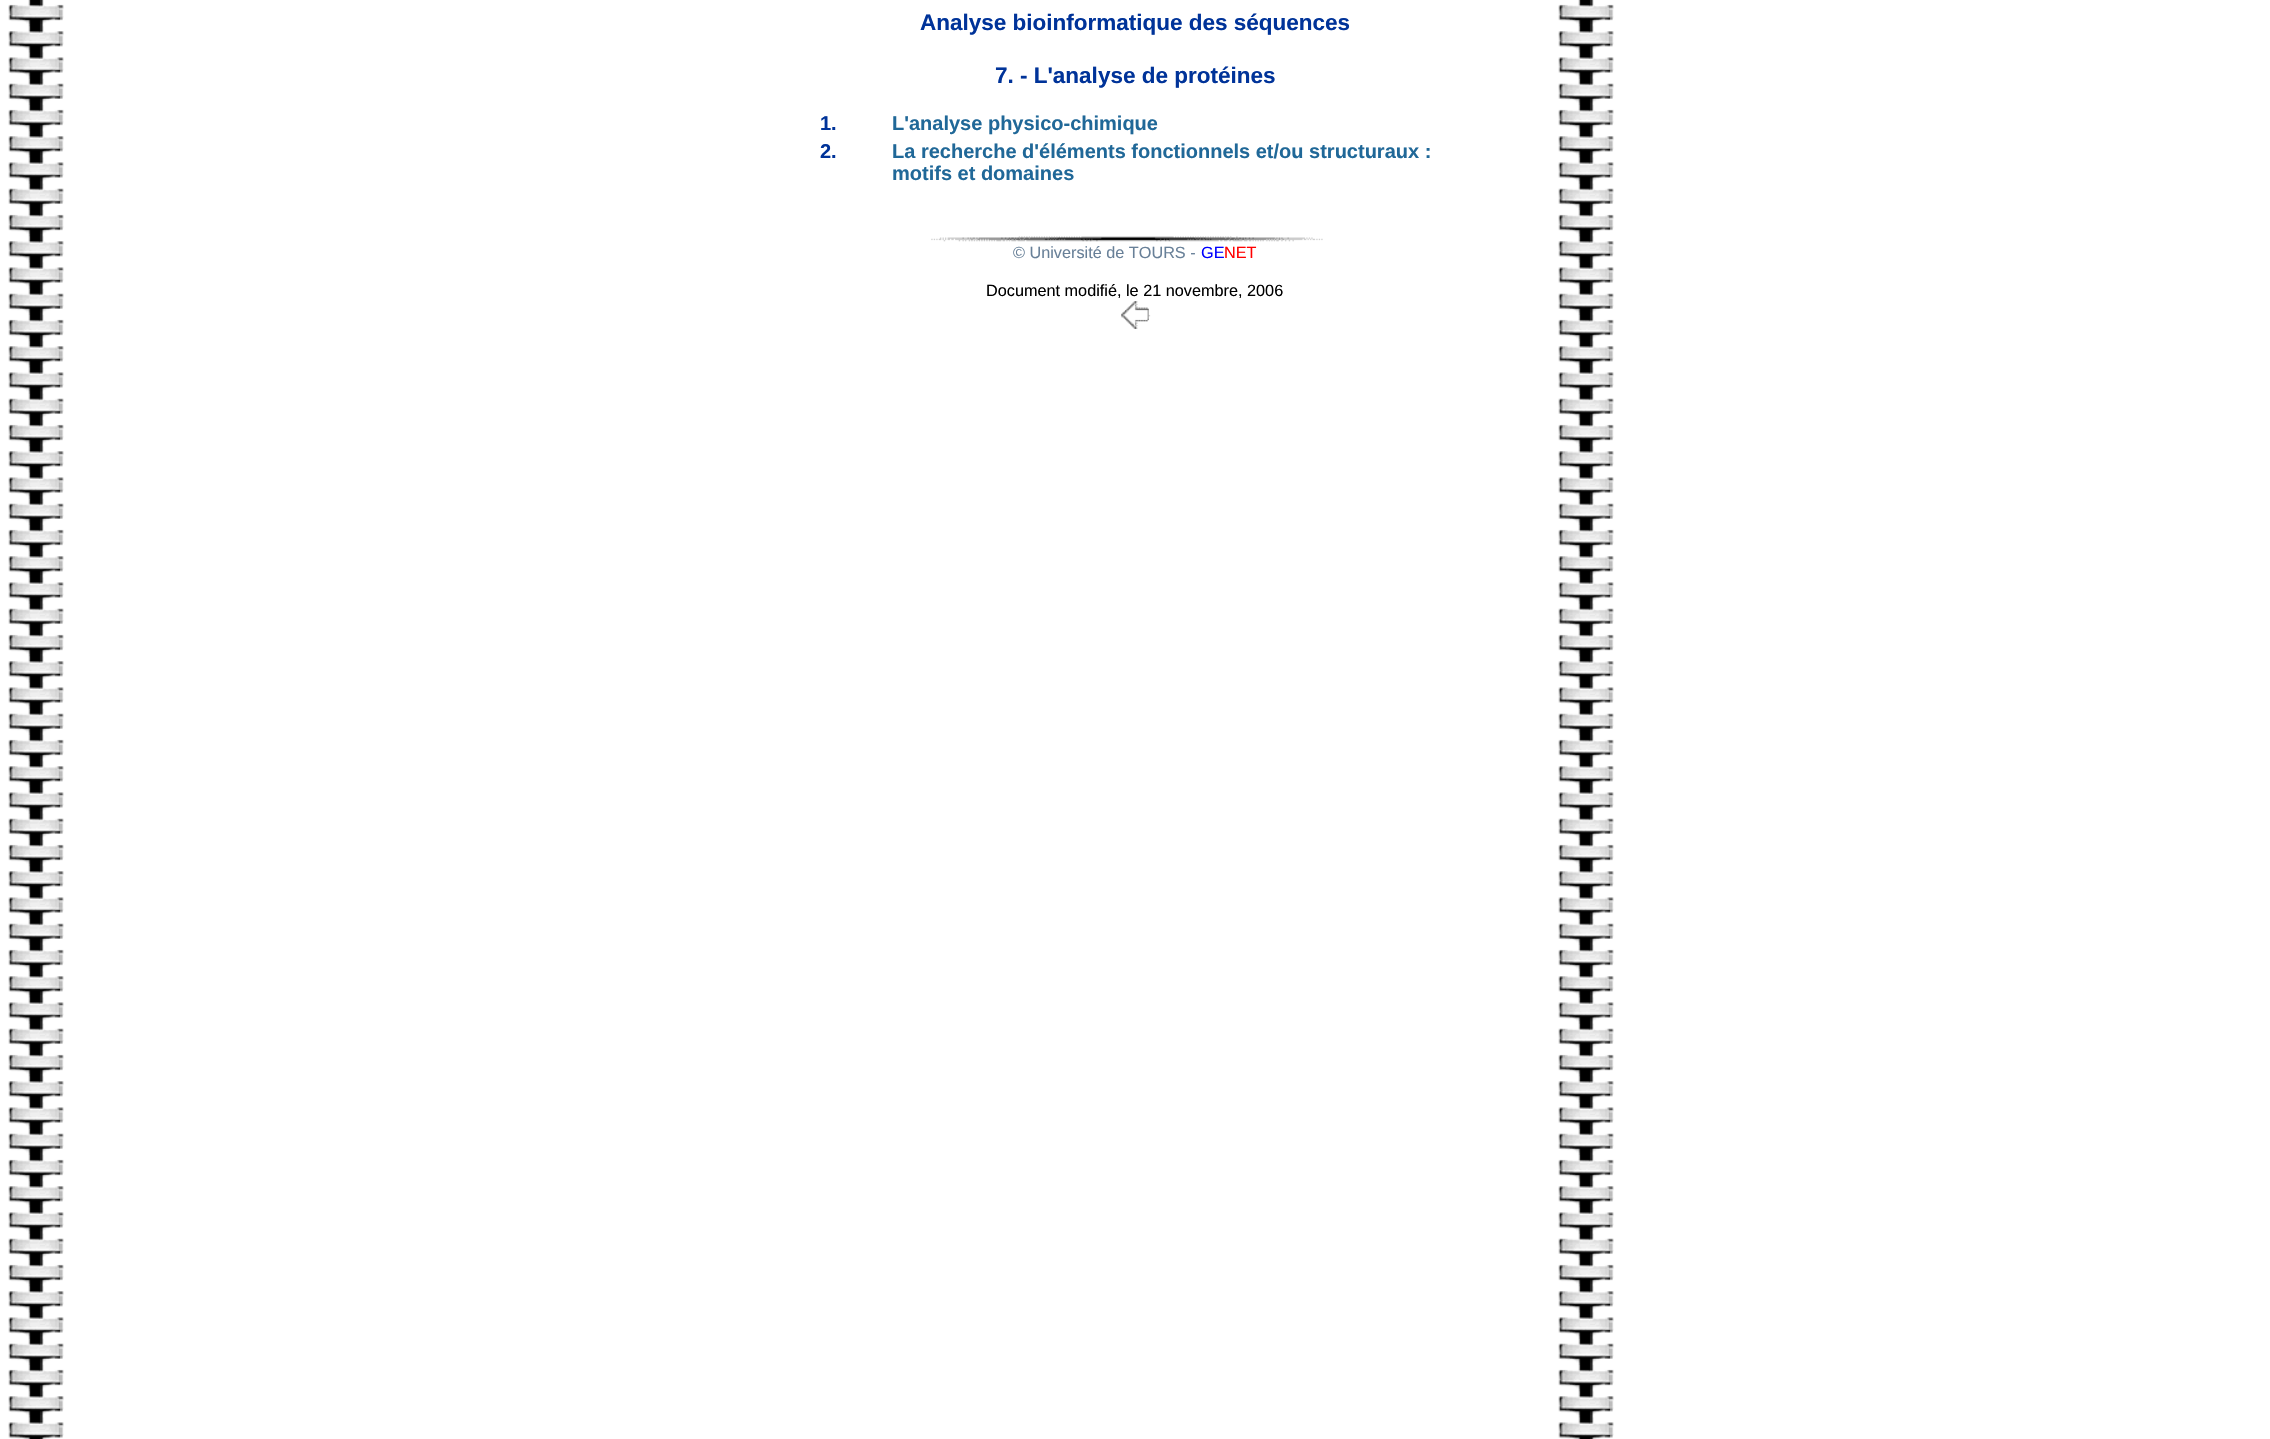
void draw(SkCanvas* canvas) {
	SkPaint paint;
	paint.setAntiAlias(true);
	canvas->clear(0xffffffff);
	canvas->drawImageRect(SkImages::DeferredFromEncodedData(SkData::MakeFromFileName("img1.png")), SkRect::MakeXYWH(8, 0, 1606, 1439), SkSamplingOptions());
	SkFont f1(fontMgr->matchFamilyStyle("Liberation Sans", SkFontStyle::Bold()), 22.5);
	f1.setSubpixel(true);
	paint.setColor(0xff003399);
	canvas->drawString("Analyse bioinformatique des séquences", 920, 30, f1, paint);
	canvas->drawString("7. - L'analyse de protéines", 995, 83, f1, paint);
	SkFont f2(fontMgr->matchFamilyStyle("Liberation Sans", SkFontStyle::Bold()), 20);
	f2.setSubpixel(true);
	canvas->drawString("1.", 820, 130, f2, paint);
	paint.setColor(0xff206898);
	canvas->drawString("L'analyse physico-chimique", 892, 130, f2, paint);
	paint.setColor(0xff003399);
	canvas->drawString("2.", 820, 158, f2, paint);
	paint.setColor(0xff206898);
	canvas->drawString("La recherche d'éléments fonctionnels et/ou structuraux :", 892, 158, f2, paint);
	canvas->drawString("motifs et domaines", 892, 180, f2, paint);
	canvas->drawImageRect(SkImages::DeferredFromEncodedData(SkData::MakeFromFileName("img2.png")), SkRect::MakeXYWH(931, 236, 392, 6), SkSamplingOptions());
	SkFont f3(fontMgr->matchFamilyStyle("Liberation Sans", SkFontStyle::Normal()), 16.25);
	f3.setSubpixel(true);
	paint.setColor(0xff688098);
	canvas->drawString("© Université de TOURS -", 1013, 258, f3, paint);
	paint.setColor(0xff0000ff);
	canvas->drawString("GE", 1201, 258, f3, paint);
	paint.setColor(0xffff0000);
	canvas->drawString("NET", 1224, 258, f3, paint);
	paint.setColor(0xff000000);
	canvas->drawString("Document modifié, le 21 novembre, 2006", 986, 296, f3, paint);
	canvas->drawImageRect(SkImages::DeferredFromEncodedData(SkData::MakeFromFileName("img3.png")), SkRect::MakeXYWH(1121, 301, 30, 28), SkSamplingOptions());
}
